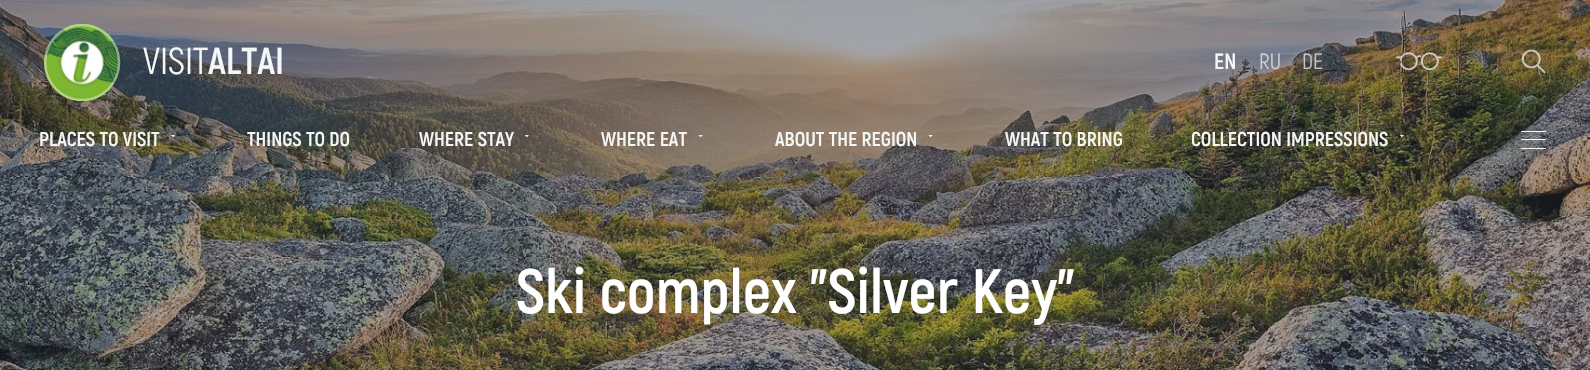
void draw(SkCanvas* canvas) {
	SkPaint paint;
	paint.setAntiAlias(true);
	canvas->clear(0xffffffff);
	canvas->drawImageRect(SkImages::DeferredFromEncodedData(SkData::MakeFromFileName("img9.png")), SkRect::MakeXYWH(0, 0, 1590, 370), SkSamplingOptions());
	canvas->drawImageRect(SkImages::DeferredFromEncodedData(SkData::MakeFromFileName("img1.png")), SkRect::MakeXYWH(44, 24, 77, 77), SkSamplingOptions());
	SkFont f1(fontMgr->matchFamilyStyle("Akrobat", SkFontStyle::Normal()), 37.5);
	f1.setSubpixel(true);
	paint.setColor(0xfff5f7f7);
	canvas->drawString("VISIT", 143, 74, f1, paint);
	SkFont f2(fontMgr->matchFamilyStyle("Akrobat", SkFontStyle::Bold()), 37.5);
	f2.setSubpixel(true);
	canvas->drawString("ALTAI", 208, 74, f2, paint);
	SkFont f3(fontMgr->matchFamilyStyle("Akrobat", SkFontStyle::Bold()), 22);
	f3.setSubpixel(true);
	canvas->drawString("EN", 1214, 69, f3, paint);
	SkFont f4(fontMgr->matchFamilyStyle("Akrobat", SkFontStyle::Normal()), 22);
	f4.setSubpixel(true);
	paint.setColor(0xffd0d2d6);
	canvas->drawString("RU", 1259, 69, f4, paint);
	paint.setColor(0xffc3c5c5);
	canvas->drawString("DE", 1302, 69, f4, paint);
	canvas->drawImageRect(SkImages::DeferredFromEncodedData(SkData::MakeFromFileName("img2.png")), SkRect::MakeXYWH(1396, 52, 46, 19), SkSamplingOptions());
	canvas->drawImageRect(SkImages::DeferredFromEncodedData(SkData::MakeFromFileName("img3.png")), SkRect::MakeXYWH(1521, 49, 25, 25), SkSamplingOptions());
	SkFont f5(fontMgr->matchFamilyStyle("Akrobat", SkFontStyle::Bold()), 20);
	f5.setSubpixel(true);
	paint.setColor(0xfff5f7f7);
	canvas->drawString("PLACES TO VISIT", 39, 146, f5, paint);
	canvas->drawImageRect(SkImages::DeferredFromEncodedData(SkData::MakeFromFileName("img4.png")), SkRect::MakeXYWH(171, 135, 5, 3), SkSamplingOptions());
	canvas->drawString("THINGS TO DO", 247, 146, f5, paint);
	canvas->drawString("WHERE STAY", 419, 146, f5, paint);
	canvas->drawImageRect(SkImages::DeferredFromEncodedData(SkData::MakeFromFileName("img5.png")), SkRect::MakeXYWH(524, 135, 5, 3), SkSamplingOptions());
	canvas->drawString("WHERE EAT", 601, 146, f5, paint);
	canvas->drawImageRect(SkImages::DeferredFromEncodedData(SkData::MakeFromFileName("img6.png")), SkRect::MakeXYWH(698, 135, 5, 3), SkSamplingOptions());
	canvas->drawString("ABOUT THE REGION", 775, 146, f5, paint);
	canvas->drawImageRect(SkImages::DeferredFromEncodedData(SkData::MakeFromFileName("img7.png")), SkRect::MakeXYWH(928, 135, 5, 3), SkSamplingOptions());
	canvas->drawString("WHAT TO BRING", 1005, 146, f5, paint);
	canvas->drawString("COLLECTION IMPRESSIONS", 1191, 146, f5, paint);
	canvas->drawImageRect(SkImages::DeferredFromEncodedData(SkData::MakeFromFileName("img8.png")), SkRect::MakeXYWH(1399, 135, 5, 3), SkSamplingOptions());
	canvas->drawRoundRect(SkRect::MakeXYWH(1521, 131, 25, 1), 0.5, 0.5, paint);
	canvas->drawRoundRect(SkRect::MakeXYWH(1521, 139, 25, 1), 0.5, 0.5, paint);
	canvas->drawRoundRect(SkRect::MakeXYWH(1521, 148, 25, 1), 0.5, 0.5, paint);
	SkFont f6(fontMgr->matchFamilyStyle("Akrobat", SkFontStyle::Bold()), 62.5);
	f6.setSubpixel(true);
	paint.setColor(0xffffffff);
	canvas->drawString("Ski complex \"Silver Key\"", 516, 313, f6, paint);
}
